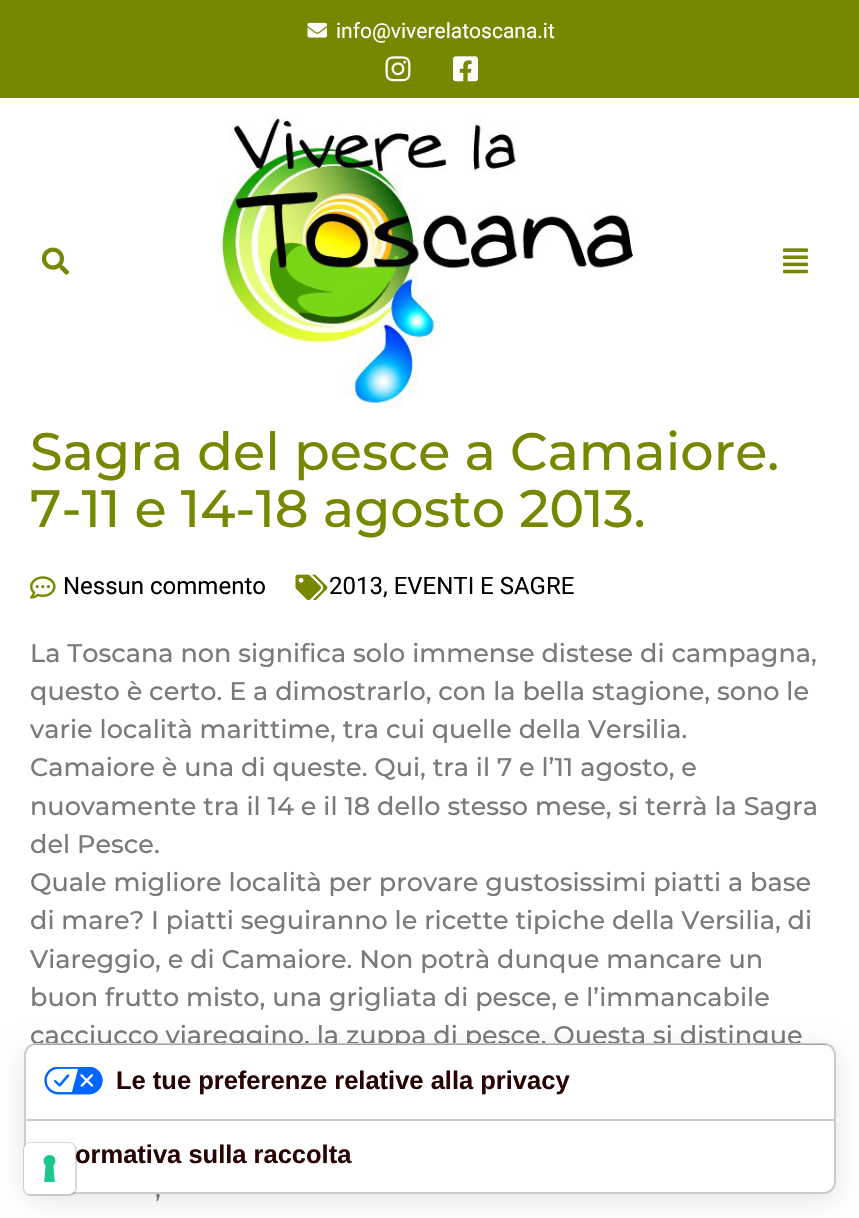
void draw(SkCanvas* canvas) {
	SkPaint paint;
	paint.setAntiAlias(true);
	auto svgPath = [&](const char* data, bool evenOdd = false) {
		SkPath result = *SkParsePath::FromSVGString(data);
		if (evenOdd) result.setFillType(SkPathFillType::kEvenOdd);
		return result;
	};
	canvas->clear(0xffffffff);
	paint.setColor(0xff778700);
	canvas->drawRect(SkRect::MakeXYWH(0, 0, 859, 98), paint);
	canvas->drawImageRect(SkImages::DeferredFromEncodedData(SkData::MakeFromFileName("img1.png")), SkRect::MakeXYWH(307, 22, 20, 16), SkSamplingOptions());
	SkFont f1(fontMgr->matchFamilyStyle("Roboto", SkFontStyle::Normal()), 21);
	f1.setSubpixel(true);
	paint.setColor(0xffffffff);
	canvas->drawString("info@viverelatoscana.it", 336, 38, f1, paint);
	canvas->drawImageRect(SkImages::DeferredFromEncodedData(SkData::MakeFromFileName("img2.png")), SkRect::MakeXYWH(385, 56, 26, 26), SkSamplingOptions());
	canvas->drawImageRect(SkImages::DeferredFromEncodedData(SkData::MakeFromFileName("img3.png")), SkRect::MakeXYWH(453, 56, 25, 26), SkSamplingOptions());
	canvas->drawImageRect(SkImages::DeferredFromEncodedData(SkData::MakeFromFileName("img4.png")), SkRect::MakeXYWH(41, 247, 29, 28), SkSamplingOptions());
	canvas->drawImageRect(SkImages::DeferredFromEncodedData(SkData::MakeFromFileName("img5.png")), SkRect::MakeXYWH(222, 118, 414, 290), SkSamplingOptions());
	canvas->drawImageRect(SkImages::DeferredFromEncodedData(SkData::MakeFromFileName("img6.png")), SkRect::MakeXYWH(783, 248, 25, 26), SkSamplingOptions());
	SkFont f2(fontMgr->matchFamilyStyle("Montserrat", SkFontStyle(500, SkFontStyle::kNormal_Width, SkFontStyle::kUpright_Slant)), 52.5);
	f2.setSubpixel(true);
	paint.setColor(0xff778700);
	canvas->drawString("Sagra del pesce a Camaiore.", 30, 470, f2, paint);
	canvas->drawString("7-11 e 14-18 agosto 2013.", 30, 527, f2, paint);
	canvas->drawImageRect(SkImages::DeferredFromEncodedData(SkData::MakeFromFileName("img7.png")), SkRect::MakeXYWH(30, 576, 26, 23), SkSamplingOptions());
	SkFont f3(fontMgr->matchFamilyStyle("Roboto", SkFontStyle::Normal()), 24);
	f3.setSubpixel(true);
	paint.setColor(0xff000000);
	canvas->drawString("Nessun commento", 63, 594, f3, paint);
	canvas->drawImageRect(SkImages::DeferredFromEncodedData(SkData::MakeFromFileName("img8.png")), SkRect::MakeXYWH(295, 574, 33, 27), SkSamplingOptions());
	canvas->drawString("2013, EVENTI E SAGRE", 329, 594, f3, paint);
	SkFont f4(fontMgr->matchFamilyStyle("Montserrat", SkFontStyle(500, SkFontStyle::kNormal_Width, SkFontStyle::kUpright_Slant)), 25.5);
	f4.setSubpixel(true);
	paint.setColor(0xff7a7a7a);
	canvas->drawString("La Toscana non significa solo immense distese di campagna,", 30, 662, f4, paint);
	canvas->drawString("questo è certo. E a dimostrarlo, con la bella stagione, sono le", 30, 700, f4, paint);
	canvas->drawString("varie località marittime, tra cui quelle della Versilia.", 30, 738, f4, paint);
	canvas->drawString("Camaiore è una di queste. Qui, tra il 7 e l’11 agosto, e", 30, 776, f4, paint);
	canvas->drawString("nuovamente tra il 14 e il 18 dello stesso mese, si terrà la Sagra", 30, 815, f4, paint);
	canvas->drawString("del Pesce.", 30, 853, f4, paint);
	canvas->drawString("Quale migliore località per provare gustosissimi piatti a base", 30, 891, f4, paint);
	canvas->drawString("di mare? I piatti seguiranno le ricette tipiche della Versilia, di", 30, 929, f4, paint);
	canvas->drawString("Viareggio, e di Camaiore. Non potrà dunque mancare un", 30, 968, f4, paint);
	canvas->drawString("buon frutto misto, una grigliata di pesce, e l’immancabile", 30, 1006, f4, paint);
	canvas->drawString("cacciucco viareggino, la zuppa di pesce. Questa si distingue", 30, 1044, f4, paint);
	canvas->drawString(",", 155, 1197, f4, paint);
	paint.setColor(0x1a000000);
	paint.setMaskFilter(SkMaskFilter::MakeBlur(kNormal_SkBlurStyle, 12));
	canvas->drawRoundRect(SkRect::MakeXYWH(24, 1049, 812, 151), 12, 12, paint);
	paint.setMaskFilter(nullptr);
	paint.setColor(0xffffffff);
	canvas->drawRoundRect(SkRect::MakeXYWH(24, 1043, 812, 151), 12, 12, paint);
	paint.setStroke(true);
	paint.setStrokeWidth(2);
	paint.setColor(0x33000000);
	canvas->drawRoundRect(SkRect::MakeXYWH(25, 1044, 810, 149), 11, 11, paint);
	SkFont f5(fontMgr->matchFamilyStyle("Liberation Sans", SkFontStyle::Bold()), 25.5);
	f5.setSubpixel(true);
	paint.setStroke(false);
	paint.setColor(0xff280404);
	canvas->drawString("ormativa sulla raccolta", 75, 1163, f5, paint);
	paint.setStroke(true);
	paint.setColor(0x26000000);
	canvas->drawRoundRect(SkRect::MakeXYWH(24, 1143, 52, 52), 7, 7, paint);
	paint.setStroke(false);
	paint.setColor(0xffffffff);
	canvas->drawRoundRect(SkRect::MakeXYWH(24, 1143, 51, 51), 6, 6, paint);
	canvas->drawImageRect(SkImages::DeferredFromEncodedData(SkData::MakeFromFileName("img9.png")), SkRect::MakeXYWH(43, 1155, 13, 27), SkSamplingOptions());
	paint.setColor(0x33000000);
	canvas->drawPath(svgPath("M834 1121H26V1119H834ZM37 1044L32 1045H828L823 1044Z", true), paint);
	canvas->drawImageRect(SkImages::DeferredFromEncodedData(SkData::MakeFromFileName("img10.png")), SkRect::MakeXYWH(44, 1067, 59, 28), SkSamplingOptions());
	paint.setColor(0xff280404);
	canvas->drawString("Le tue preferenze relative alla privacy", 116, 1089, f5, paint);
}
